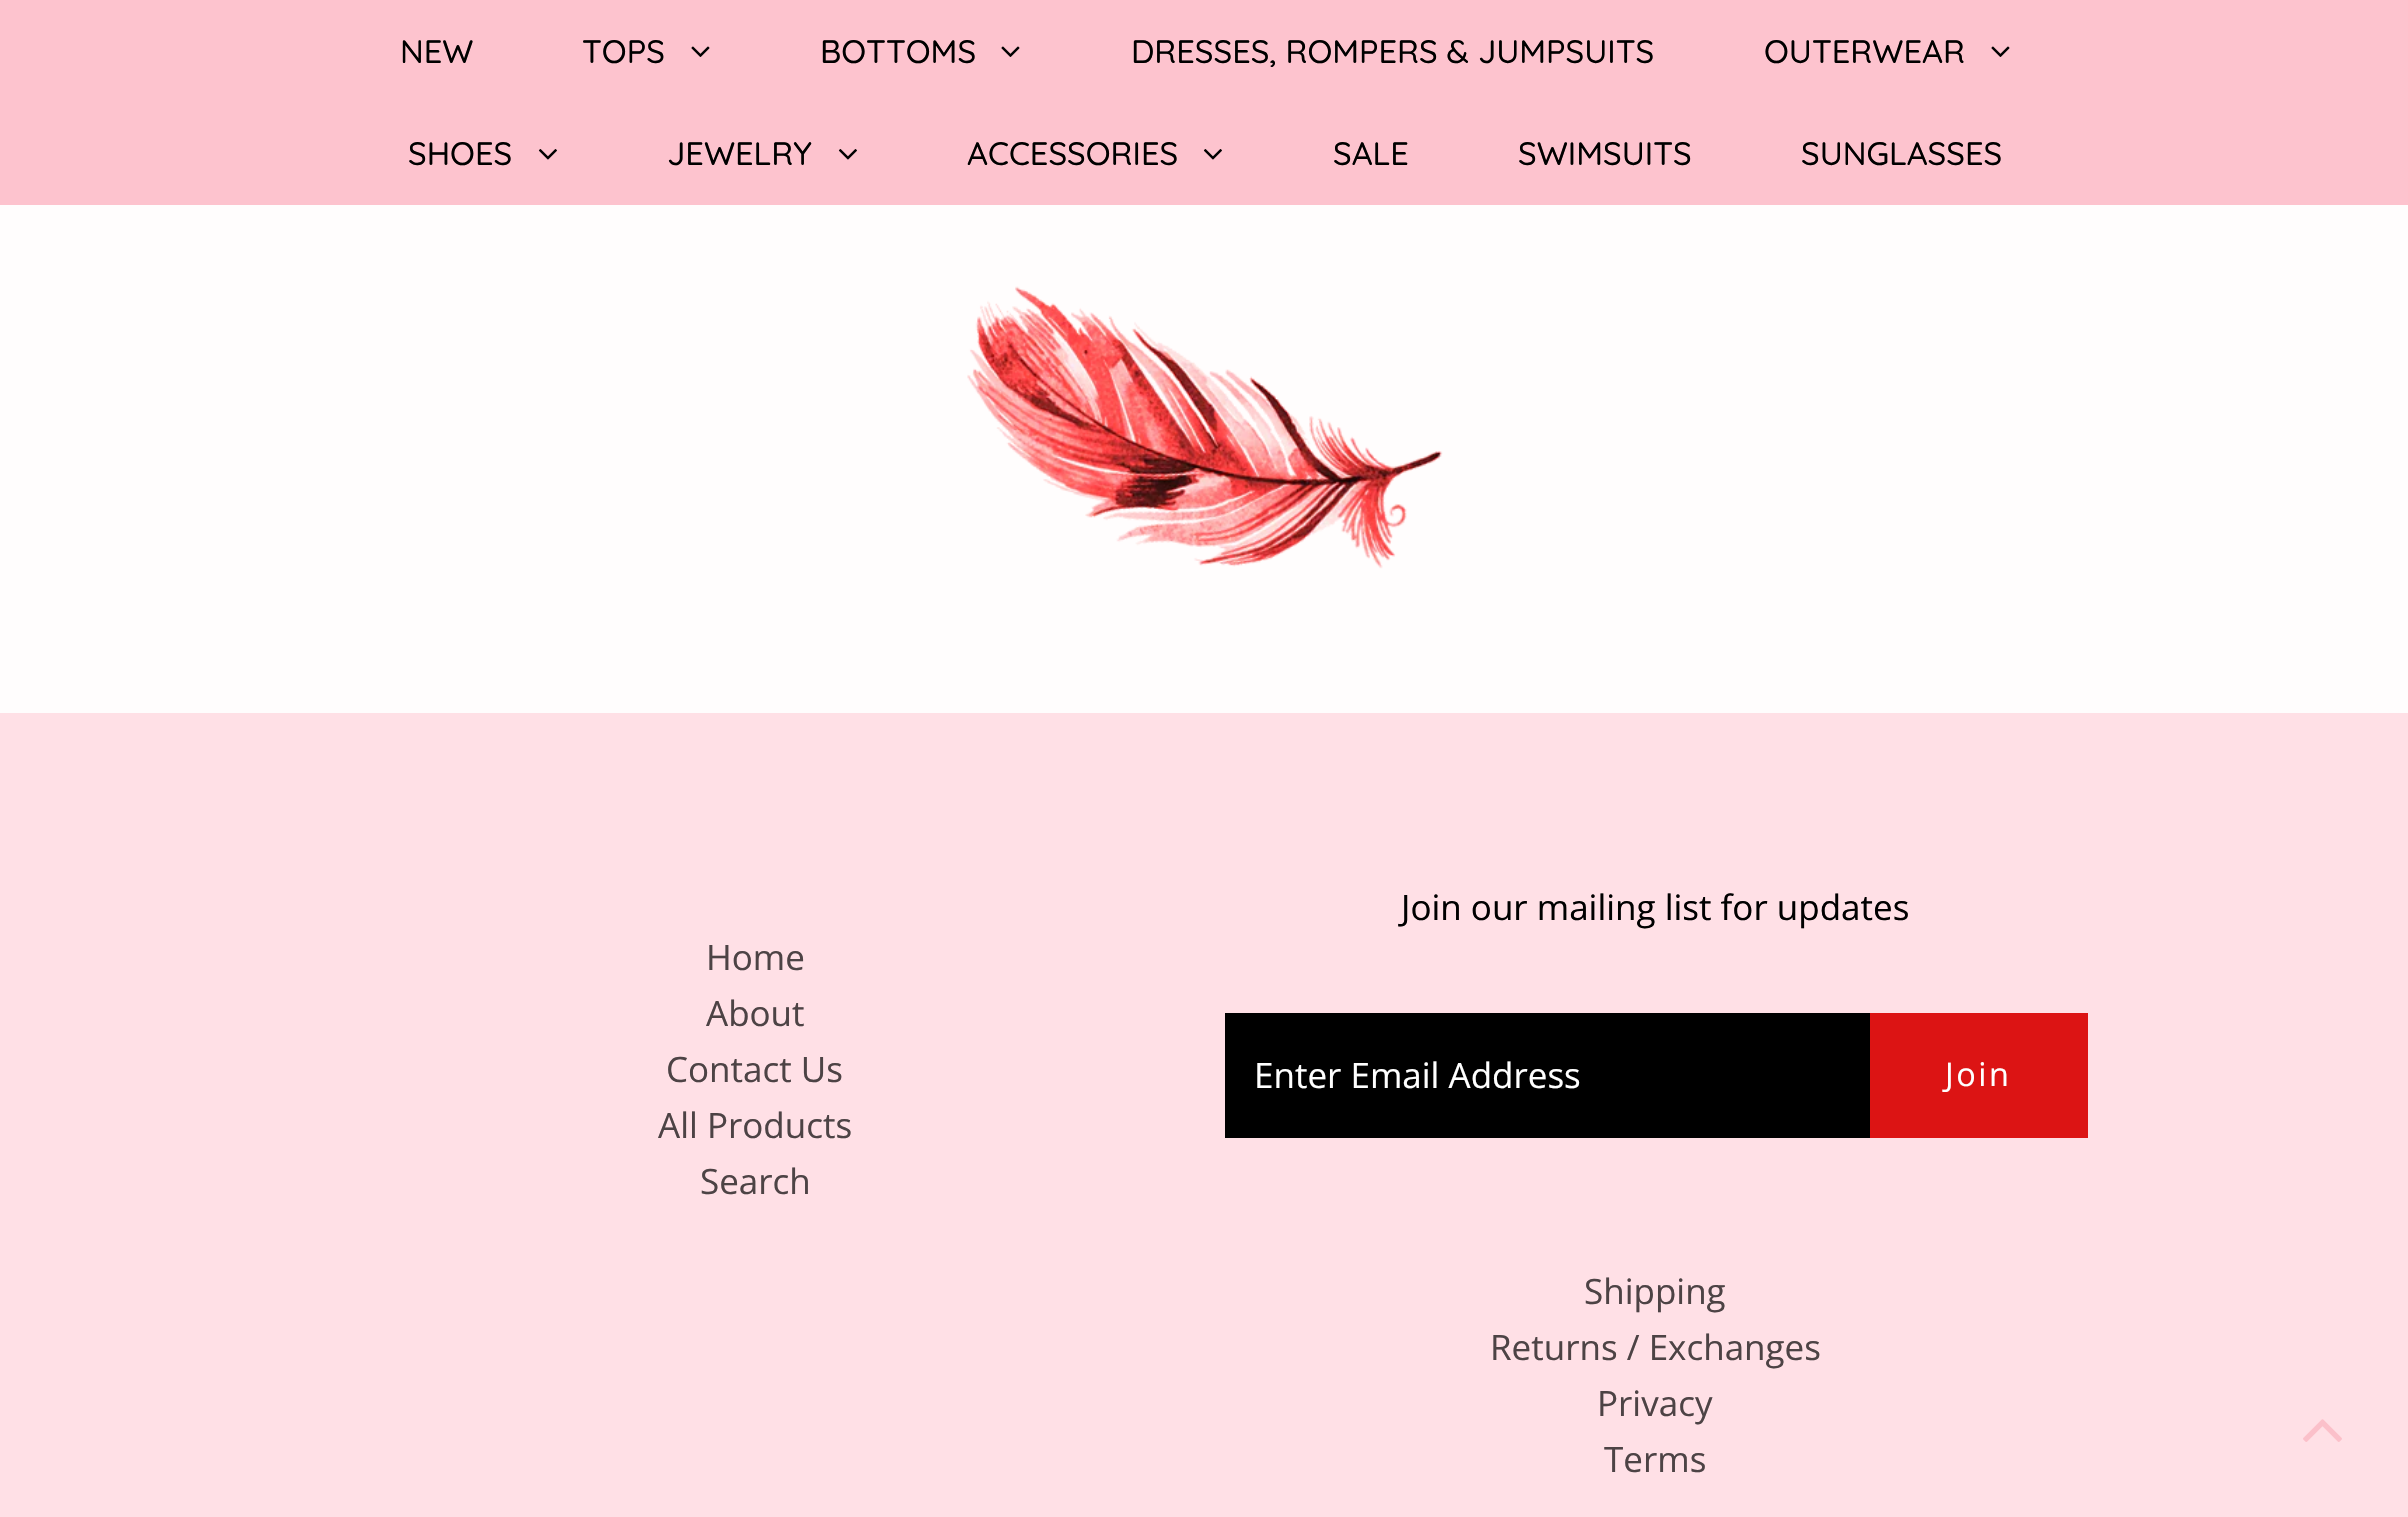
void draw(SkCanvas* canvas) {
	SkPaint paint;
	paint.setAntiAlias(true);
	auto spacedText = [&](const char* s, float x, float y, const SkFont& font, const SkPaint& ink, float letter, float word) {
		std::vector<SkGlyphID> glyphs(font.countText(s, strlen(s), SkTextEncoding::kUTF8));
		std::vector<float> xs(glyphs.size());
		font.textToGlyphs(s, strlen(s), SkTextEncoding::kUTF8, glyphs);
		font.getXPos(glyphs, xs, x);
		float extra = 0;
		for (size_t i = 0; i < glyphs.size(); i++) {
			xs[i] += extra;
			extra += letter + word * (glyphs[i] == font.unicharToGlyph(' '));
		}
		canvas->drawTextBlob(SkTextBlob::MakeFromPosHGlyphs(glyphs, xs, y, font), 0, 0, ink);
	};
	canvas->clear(0xfffffdfd);
	paint.setColor(0xfffdc3ce);
	canvas->drawRect(SkRect::MakeXYWH(0, 0, 2408, 205), paint);
	SkFont f1(fontMgr->matchFamilyStyle("Quicksand", SkFontStyle(500, SkFontStyle::kNormal_Width, SkFontStyle::kUpright_Slant)), 32.5);
	f1.setSubpixel(true);
	paint.setColor(0xff000000);
	canvas->drawString("NEW", 400, 63, f1, paint);
	canvas->drawString("TOPS", 582, 63, f1, paint);
	canvas->drawImageRect(SkImages::DeferredFromEncodedData(SkData::MakeFromFileName("img1.png")), SkRect::MakeXYWH(691, 46, 19, 11), SkSamplingOptions());
	canvas->drawString("BOTTOMS", 820, 63, f1, paint);
	canvas->drawImageRect(SkImages::DeferredFromEncodedData(SkData::MakeFromFileName("img1.png")), SkRect::MakeXYWH(1001, 46, 19, 11), SkSamplingOptions());
	canvas->drawString("DRESSES, ROMPERS & JUMPSUITS", 1131, 63, f1, paint);
	canvas->drawString("OUTERWEAR", 1764, 63, f1, paint);
	canvas->drawImageRect(SkImages::DeferredFromEncodedData(SkData::MakeFromFileName("img1.png")), SkRect::MakeXYWH(1991, 46, 19, 11), SkSamplingOptions());
	canvas->drawString("SHOES", 408, 165, f1, paint);
	canvas->drawImageRect(SkImages::DeferredFromEncodedData(SkData::MakeFromFileName("img2.png")), SkRect::MakeXYWH(538, 149, 19, 11), SkSamplingOptions());
	canvas->drawString("JEWELRY", 667, 165, f1, paint);
	canvas->drawImageRect(SkImages::DeferredFromEncodedData(SkData::MakeFromFileName("img2.png")), SkRect::MakeXYWH(838, 149, 19, 11), SkSamplingOptions());
	canvas->drawString("ACCESSORIES", 967, 165, f1, paint);
	canvas->drawImageRect(SkImages::DeferredFromEncodedData(SkData::MakeFromFileName("img2.png")), SkRect::MakeXYWH(1203, 149, 19, 11), SkSamplingOptions());
	canvas->drawString("SALE", 1333, 165, f1, paint);
	canvas->drawString("SWIMSUITS", 1518, 165, f1, paint);
	canvas->drawString("SUNGLASSES", 1801, 165, f1, paint);
	canvas->drawImageRect(SkImages::DeferredFromEncodedData(SkData::MakeFromFileName("img3.png")), SkRect::MakeXYWH(967, 286, 476, 283), SkSamplingOptions());
	paint.setColor(0xffffe0e6);
	canvas->drawRect(SkRect::MakeXYWH(0, 713, 2408, 804), paint);
	SkFont f2(fontMgr->matchFamilyStyle("Open Sans", SkFontStyle::Normal()), 35);
	f2.setSubpixel(true);
	paint.setColor(0xff4d4345);
	canvas->drawString("Home", 706, 970, f2, paint);
	canvas->drawString("About", 706, 1026, f2, paint);
	canvas->drawString("Contact Us", 666, 1082, f2, paint);
	canvas->drawString("All Products", 658, 1138, f2, paint);
	canvas->drawString("Search", 700, 1194, f2, paint);
	paint.setColor(0xff000000);
	canvas->drawString("Join our mailing list for updates", 1401, 920, f2, paint);
	canvas->drawRect(SkRect::MakeXYWH(1225, 1013, 645, 125), paint);
	paint.setColor(0xffffffff);
	canvas->drawString("Enter Email Address", 1254, 1088, f2, paint);
	paint.setColor(0xffdc1414);
	canvas->drawRect(SkRect::MakeXYWH(1870, 1013, 218, 125), paint);
	SkFont f3(fontMgr->matchFamilyStyle("Open Sans", SkFontStyle::Normal()), 32.5);
	f3.setSubpixel(true);
	paint.setColor(0xffffffff);
	spacedText("Join", 1945, 1086, f3, paint, 2.5, 0);
	paint.setColor(0xff4d4345);
	canvas->drawString("Shipping", 1584, 1304, f2, paint);
	canvas->drawString("Returns / Exchanges", 1490, 1360, f2, paint);
	canvas->drawString("Privacy", 1597, 1416, f2, paint);
	canvas->drawString("Terms", 1604, 1472, f2, paint);
	canvas->drawImageRect(SkImages::DeferredFromEncodedData(SkData::MakeFromFileName("img4.png")), SkRect::MakeXYWH(2303, 1419, 39, 23), SkSamplingOptions());
}
